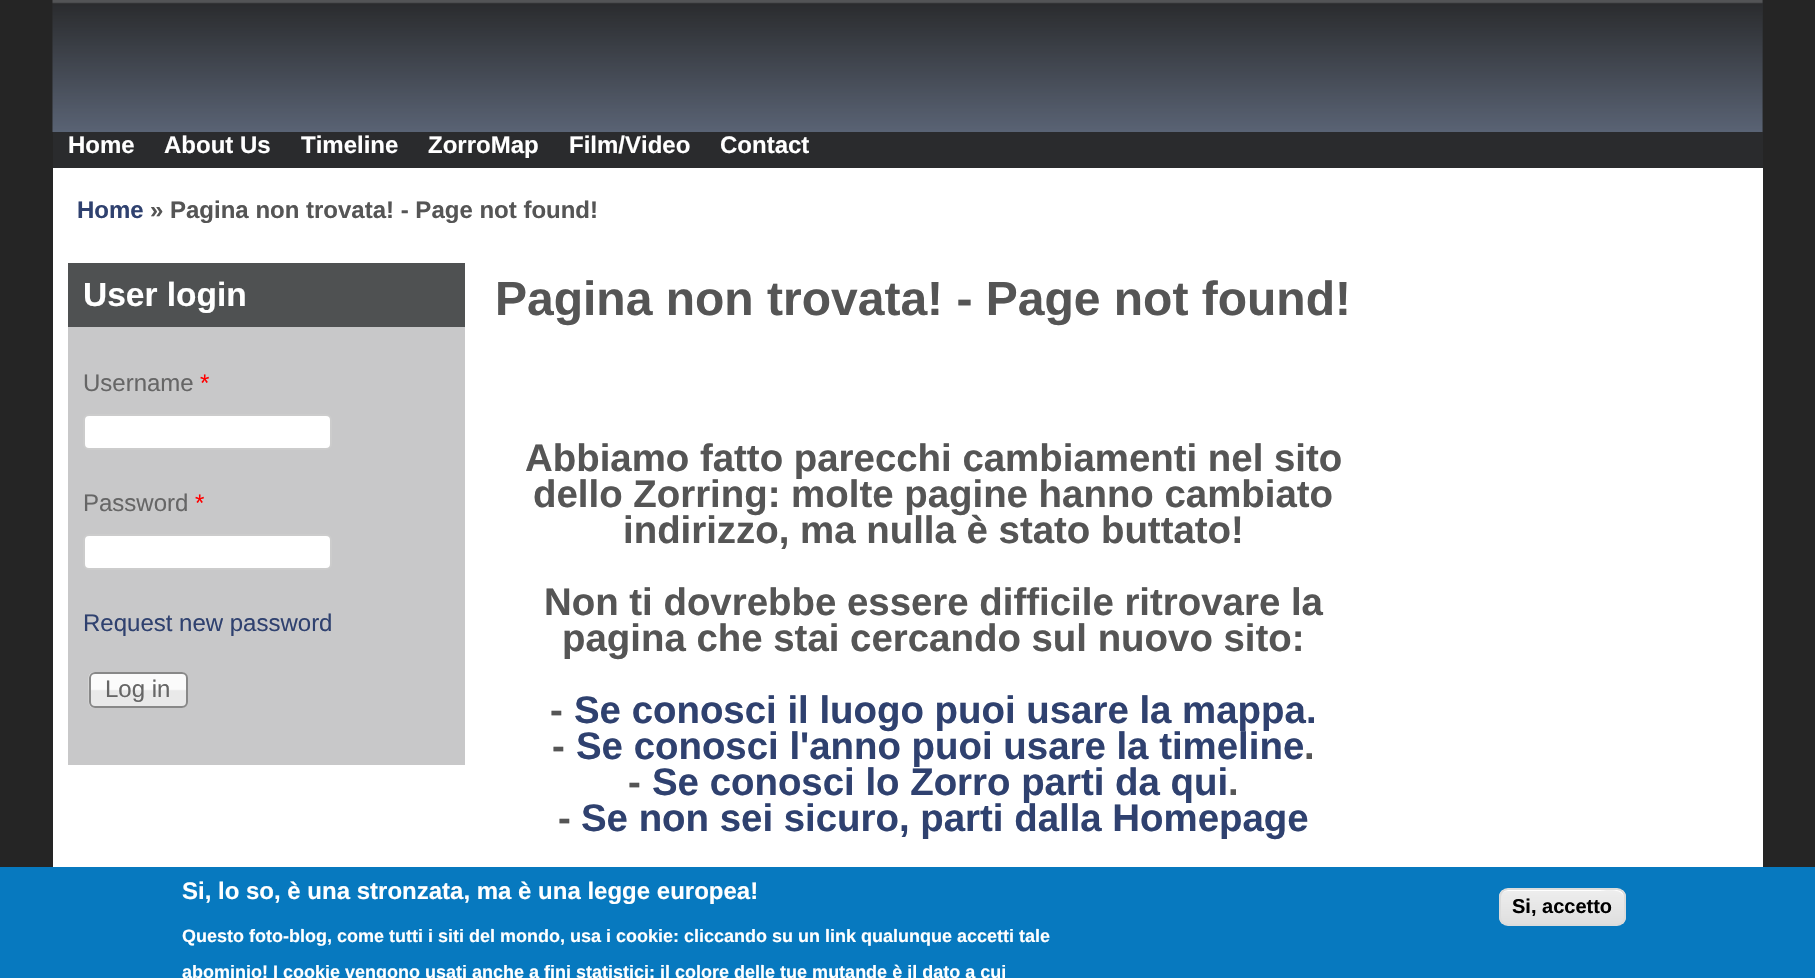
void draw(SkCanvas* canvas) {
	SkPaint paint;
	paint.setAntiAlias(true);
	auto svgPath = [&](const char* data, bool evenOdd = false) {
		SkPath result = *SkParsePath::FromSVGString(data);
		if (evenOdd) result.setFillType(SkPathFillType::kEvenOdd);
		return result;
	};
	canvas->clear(0xff252525);
	paint.setColor(0xffffffff);
	canvas->drawRect(SkRect::MakeXYWH(53, 168, 1710, 699), paint);
	paint.setColor(0xff2a2b2d);
	canvas->drawRect(SkRect::MakeXYWH(1762, 0, 1, 132), paint);
	canvas->drawImageRect(SkImages::DeferredFromEncodedData(SkData::MakeFromFileName("img1.png")), SkRect::MakeXYWH(52, 0, 1711, 132), SkSamplingOptions());
	canvas->drawRect(SkRect::MakeXYWH(53, 132, 1710, 36), paint);
	SkFont f1(fontMgr->matchFamilyStyle("Liberation Sans", SkFontStyle::Bold()), 24);
	f1.setSubpixel(true);
	paint.setColor(0xffffffff);
	canvas->drawString("Home", 68, 153, f1, paint);
	canvas->drawString("About Us", 164, 153, f1, paint);
	canvas->drawString("Timeline", 301, 153, f1, paint);
	canvas->drawString("ZorroMap", 428, 153, f1, paint);
	canvas->drawString("Film/Video", 569, 153, f1, paint);
	canvas->drawString("Contact", 720, 153, f1, paint);
	paint.setColor(0xff2f416f);
	canvas->drawString("Home", 77, 218, f1, paint);
	paint.setColor(0xff555555);
	canvas->drawString("» Pagina non trovata! - Page not found!", 150, 218, f1, paint);
	paint.setColor(0xffc8c8c9);
	canvas->drawRect(SkRect::MakeXYWH(68, 327, 397, 438), paint);
	paint.setColor(0xff4f5152);
	canvas->drawRect(SkRect::MakeXYWH(68, 263, 397, 64), paint);
	SkFont f2(fontMgr->matchFamilyStyle("Liberation Sans", SkFontStyle::Bold()), 33.5);
	f2.setSubpixel(true);
	paint.setColor(0xffffffff);
	canvas->drawString("User login", 83, 306, f2, paint);
	SkFont f3(fontMgr->matchFamilyStyle("Liberation Sans", SkFontStyle::Normal()), 24);
	f3.setSubpixel(true);
	paint.setColor(0xff666666);
	canvas->drawString("Username", 83, 391, f3, paint);
	paint.setColor(0xffff0000);
	canvas->drawString("*", 200, 391, f3, paint);
	paint.setColor(0xffffffff);
	canvas->drawRoundRect(SkRect::MakeXYWH(84, 415, 247, 34), 5, 5, paint);
	paint.setStroke(true);
	paint.setStrokeWidth(2);
	paint.setColor(0xffcccccc);
	canvas->drawRoundRect(SkRect::MakeXYWH(84, 415, 247, 34), 5, 5, paint);
	paint.setStroke(false);
	paint.setColor(0xff666666);
	canvas->drawString("Password", 83, 511, f3, paint);
	paint.setColor(0xffff0000);
	canvas->drawString("*", 195, 511, f3, paint);
	paint.setColor(0xffffffff);
	canvas->drawRoundRect(SkRect::MakeXYWH(84, 535, 247, 34), 5, 5, paint);
	paint.setStroke(true);
	paint.setColor(0xffcccccc);
	canvas->drawRoundRect(SkRect::MakeXYWH(84, 535, 247, 34), 5, 5, paint);
	paint.setStroke(false);
	paint.setColor(0xff2f416f);
	canvas->drawString("Request new password", 83, 631, f3, paint);
	canvas->drawImageRect(SkImages::DeferredFromEncodedData(SkData::MakeFromFileName("img2.png")), SkRect::MakeXYWH(88, 672, 100, 36), SkSamplingOptions());
	paint.setStroke(true);
	paint.setColor(0xff888888);
	canvas->drawRoundRect(SkRect::MakeXYWH(90, 673, 97, 34), 5, 5, paint);
	paint.setStroke(false);
	paint.setColor(0xff666666);
	canvas->drawString("Log in", 105, 697, f3, paint);
	SkFont f4(fontMgr->matchFamilyStyle("Liberation Sans", SkFontStyle::Bold()), 48);
	f4.setSubpixel(true);
	paint.setColor(0xff555555);
	canvas->drawString("Pagina non trovata! - Page not found!", 495, 315, f4, paint);
	SkFont f5(fontMgr->matchFamilyStyle("Liberation Sans", SkFontStyle::Bold()), 38.4);
	f5.setSubpixel(true);
	canvas->drawString("Abbiamo fatto parecchi cambiamenti nel sito", 525, 471, f5, paint);
	canvas->drawString("dello Zorring: molte pagine hanno cambiato", 533, 507, f5, paint);
	canvas->drawString("indirizzo, ma nulla è stato buttato!", 623, 543, f5, paint);
	canvas->drawString("Non ti dovrebbe essere difficile ritrovare la", 544, 615, f5, paint);
	canvas->drawString("pagina che stai cercando sul nuovo sito:", 562, 651, f5, paint);
	canvas->drawString("-", 550, 723, f5, paint);
	paint.setColor(0xff2f416f);
	canvas->drawString("Se conosci il luogo puoi usare la mappa.", 574, 723, f5, paint);
	paint.setColor(0xff555555);
	canvas->drawString("-", 552, 759, f5, paint);
	paint.setColor(0xff2f416f);
	canvas->drawString("Se conosci l'anno puoi usare la timeline", 576, 759, f5, paint);
	paint.setColor(0xff555555);
	canvas->drawString(".", 1304, 759, f5, paint);
	canvas->drawString("-", 628, 795, f5, paint);
	paint.setColor(0xff2f416f);
	canvas->drawString("Se conosci lo Zorro parti da qui", 652, 795, f5, paint);
	paint.setColor(0xff555555);
	canvas->drawString(".", 1228, 795, f5, paint);
	canvas->drawString("-", 558, 831, f5, paint);
	paint.setColor(0xff2f416f);
	canvas->drawString("Se non sei sicuro, parti dalla Homepage", 581, 831, f5, paint);
	paint.setColor(0xff0779bf);
	canvas->drawRect(SkRect::MakeXYWH(0, 867, 1815, 111), paint);
	paint.setColor(0xffffffff);
	canvas->drawString("Si, lo so, è una stronzata, ma è una legge europea!", 182, 899, f1, paint);
	SkFont f6(fontMgr->matchFamilyStyle("Liberation Sans", SkFontStyle::Bold()), 18);
	f6.setSubpixel(true);
	canvas->drawString("Questo foto-blog, come tutti i siti del mondo, usa i cookie: cliccando su un link qualunque accetti tale", 182, 942, f6, paint);
	canvas->drawString("abominio! I cookie vengono usati anche a fini statistici: il colore delle tue mutande è il dato a cui", 182, 978, f6, paint);
	canvas->save();
	canvas->clipPath(svgPath("M1508 888H1617C1622 888 1626 892 1626 897V917C1626 922 1622 926 1617 926H1508C1503 926 1499 922 1499 917V897C1499 892 1503 888 1508 888Z"), true);
	{
		const SkColor colors[] = {0xffededed, 0xffdfdfdf};
		const float stops[] = {0.05, 1};
		const SkPoint ends[] = {{1562, 890}, {1562, 924}};
		paint.setShader(SkGradientShader::MakeLinear(ends, colors, stops, 2, SkTileMode::kClamp));
		paint.setAlpha(255);
	}
	canvas->drawRect(SkRect::MakeXYWH(1499, 890, 127, 34), paint);
	canvas->restore();
	paint.setShader(nullptr);
	paint.setColor(0xffffffff);
	canvas->drawPath(svgPath("M1508 891H1599C1602 891 1622 887 1624 897V920C1624 919 1625 918 1625 916V898C1625 894 1621 890 1617 890H1508C1504 890 1500 894 1500 898C1500 894 1503 891 1508 891Z"), paint);
	paint.setStroke(true);
	paint.setColor(0xffdcdcdc);
	canvas->drawRoundRect(SkRect::MakeXYWH(1500, 889, 125, 36), 8, 8, paint);
	SkFont f7(fontMgr->matchFamilyStyle("Liberation Sans", SkFontStyle::Bold()), 20);
	f7.setSubpixel(true);
	paint.setStroke(false);
	paint.setColor(0xff000000);
	canvas->drawString("Si, accetto", 1512, 913, f7, paint);
}
